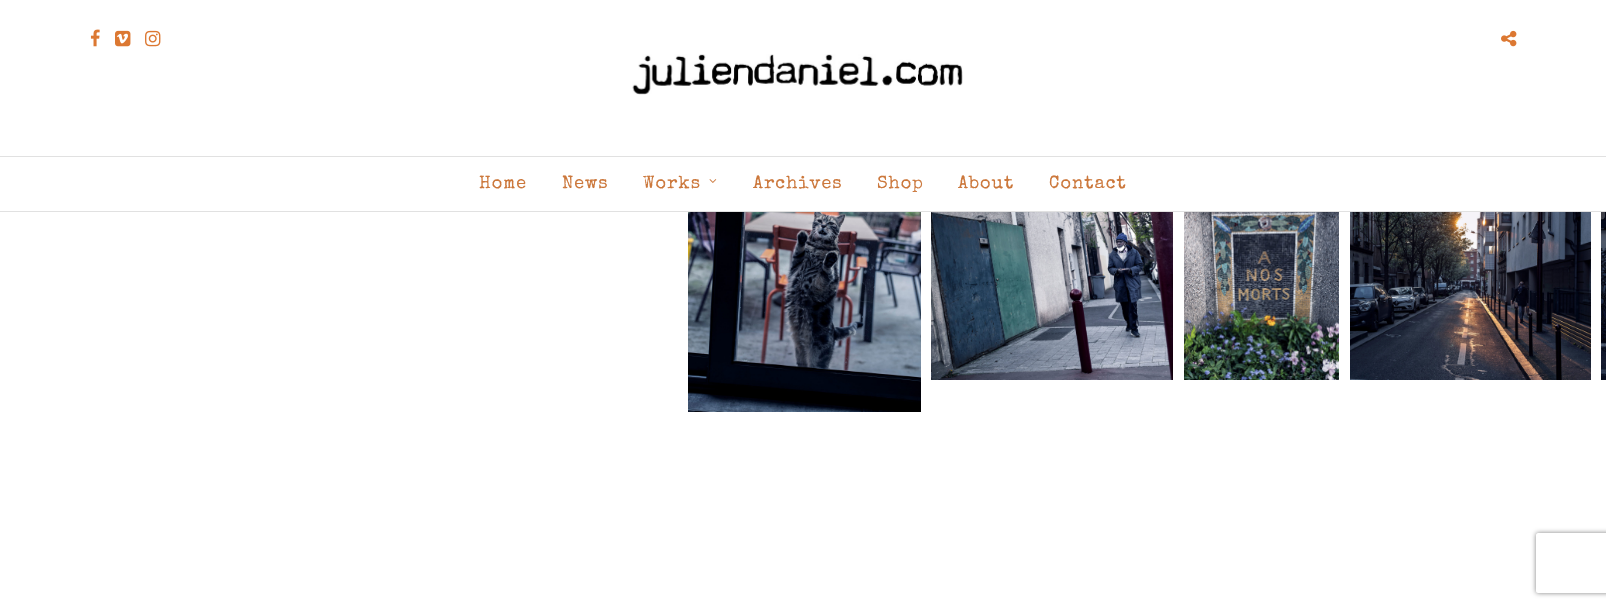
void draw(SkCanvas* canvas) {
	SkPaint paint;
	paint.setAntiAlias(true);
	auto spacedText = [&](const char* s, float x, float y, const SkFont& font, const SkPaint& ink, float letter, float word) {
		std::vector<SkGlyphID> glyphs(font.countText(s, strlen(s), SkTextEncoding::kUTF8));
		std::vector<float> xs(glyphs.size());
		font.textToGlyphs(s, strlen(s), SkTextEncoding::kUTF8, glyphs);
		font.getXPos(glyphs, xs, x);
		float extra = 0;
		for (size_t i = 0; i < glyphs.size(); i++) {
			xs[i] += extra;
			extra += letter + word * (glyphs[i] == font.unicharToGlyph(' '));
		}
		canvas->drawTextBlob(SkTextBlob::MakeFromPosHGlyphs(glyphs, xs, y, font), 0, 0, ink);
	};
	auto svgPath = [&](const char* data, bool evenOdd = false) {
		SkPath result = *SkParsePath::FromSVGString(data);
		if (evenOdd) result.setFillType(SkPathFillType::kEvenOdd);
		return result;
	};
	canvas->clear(0xffffffff);
	paint.setColor(0xffe1e1e1);
	canvas->drawRect(SkRect::MakeXYWH(0, 211, 1606, 1), paint);
	canvas->drawRect(SkRect::MakeXYWH(0, 156, 1606, 1), paint);
	canvas->drawImageRect(SkImages::DeferredFromEncodedData(SkData::MakeFromFileName("img1.png")), SkRect::MakeXYWH(90, 29, 10, 18), SkSamplingOptions());
	canvas->drawImageRect(SkImages::DeferredFromEncodedData(SkData::MakeFromFileName("img2.png")), SkRect::MakeXYWH(115, 30, 16, 17), SkSamplingOptions());
	canvas->drawImageRect(SkImages::DeferredFromEncodedData(SkData::MakeFromFileName("img3.png")), SkRect::MakeXYWH(145, 30, 16, 17), SkSamplingOptions());
	canvas->drawImageRect(SkImages::DeferredFromEncodedData(SkData::MakeFromFileName("img4.png")), SkRect::MakeXYWH(1501, 30, 16, 17), SkSamplingOptions());
	canvas->drawImageRect(SkImages::DeferredFromEncodedData(SkData::MakeFromFileName("img5.png")), SkRect::MakeXYWH(632, 54, 331, 41), SkSamplingOptions());
	SkFont f1(fontMgr->matchFamilyStyle("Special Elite", SkFontStyle::Normal()), 18);
	f1.setSubpixel(true);
	paint.setColor(0xffcc783c);
	spacedText("Home", 479, 188, f1, paint, 1, 0);
	spacedText("News", 562, 188, f1, paint, 1, 0);
	spacedText("Works", 643, 188, f1, paint, 1, 0);
	canvas->drawImageRect(SkImages::DeferredFromEncodedData(SkData::MakeFromFileName("img6.png")), SkRect::MakeXYWH(709, 179, 8, 4), SkSamplingOptions());
	spacedText("Archives", 753, 188, f1, paint, 1, 0);
	spacedText("Shop", 877, 188, f1, paint, 1, 0);
	spacedText("About", 958, 188, f1, paint, 1, 0);
	spacedText("Contact", 1049, 188, f1, paint, 1, 0);
	canvas->drawImageRect(SkImages::DeferredFromEncodedData(SkData::MakeFromFileName("img7.png")), SkRect::MakeXYWH(688, 212, 233, 200), SkSamplingOptions());
	canvas->drawImageRect(SkImages::DeferredFromEncodedData(SkData::MakeFromFileName("img8.png")), SkRect::MakeXYWH(931, 212, 242, 168), SkSamplingOptions());
	canvas->drawImageRect(SkImages::DeferredFromEncodedData(SkData::MakeFromFileName("img9.png")), SkRect::MakeXYWH(1184, 212, 155, 168), SkSamplingOptions());
	canvas->drawImageRect(SkImages::DeferredFromEncodedData(SkData::MakeFromFileName("img10.png")), SkRect::MakeXYWH(1350, 212, 241, 168), SkSamplingOptions());
	canvas->drawImageRect(SkImages::DeferredFromEncodedData(SkData::MakeFromFileName("img11.png")), SkRect::MakeXYWH(1601, 212, 5, 168), SkSamplingOptions());
	canvas->save();
	canvas->clipPath(svgPath("M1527 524H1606V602H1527ZM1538 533H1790C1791 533 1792 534 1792 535V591C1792 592 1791 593 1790 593H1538C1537 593 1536 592 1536 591V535C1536 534 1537 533 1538 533Z", true), true);
	paint.setColor(0xff808080);
	paint.setMaskFilter(SkMaskFilter::MakeBlur(kNormal_SkBlurStyle, 2.5));
	canvas->drawRoundRect(SkRect::MakeXYWH(1536, 533, 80, 60), 2, 2, paint);
	paint.setMaskFilter(nullptr);
	canvas->restore();
}
